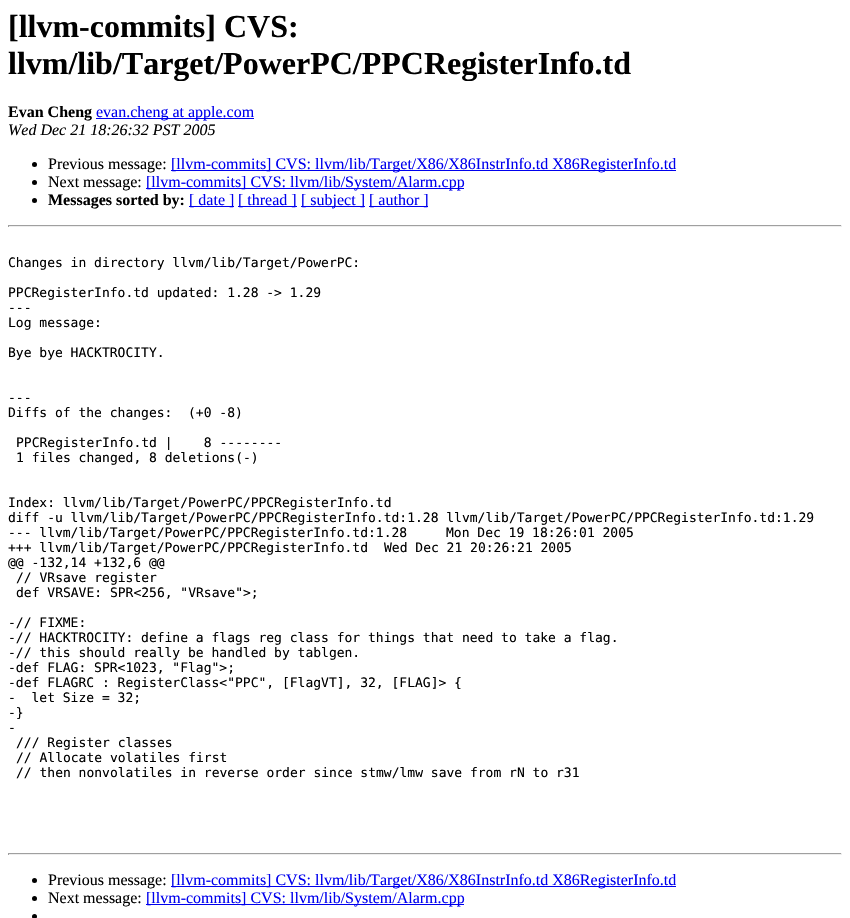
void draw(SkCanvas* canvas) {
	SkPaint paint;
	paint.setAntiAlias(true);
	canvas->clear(0xffffffff);
	SkFont f1(fontMgr->matchFamilyStyle("Liberation Serif", SkFontStyle::Bold()), 32);
	f1.setSubpixel(true);
	paint.setColor(0xff000000);
	canvas->drawString("[llvm-commits] CVS:", 8, 37, f1, paint);
	canvas->drawString("llvm/lib/Target/PowerPC/PPCRegisterInfo.td", 8, 74, f1, paint);
	SkFont f2(fontMgr->matchFamilyStyle("Liberation Serif", SkFontStyle::Bold()), 16);
	f2.setSubpixel(true);
	canvas->drawString("Evan Cheng", 8, 117, f2, paint);
	paint.setColor(0xff0000ee);
	canvas->drawRect(SkRect::MakeXYWH(96, 118, 158, 1), paint);
	SkFont f3(fontMgr->matchFamilyStyle("Liberation Serif", SkFontStyle::Normal()), 16);
	f3.setSubpixel(true);
	canvas->drawString("evan.cheng at apple.com", 96, 117, f3, paint);
	SkFont f4(fontMgr->matchFamilyStyle("Liberation Serif", SkFontStyle::Italic()), 16);
	f4.setSubpixel(true);
	paint.setColor(0xff000000);
	canvas->drawString("Wed Dec 21 18:26:32 PST 2005", 8, 135, f4, paint);
	canvas->drawCircle(34.5, 164.5, 2.5, paint);
	canvas->drawString("Previous message:", 48, 169, f3, paint);
	paint.setColor(0xff0000ee);
	canvas->drawRect(SkRect::MakeXYWH(171, 170, 505, 1), paint);
	canvas->drawString("[llvm-commits] CVS: llvm/lib/Target/X86/X86InstrInfo.td X86RegisterInfo.td", 171, 169, f3, paint);
	paint.setColor(0xff000000);
	canvas->drawCircle(34.5, 182.5, 2.5, paint);
	canvas->drawString("Next message:", 48, 187, f3, paint);
	paint.setColor(0xff0000ee);
	canvas->drawRect(SkRect::MakeXYWH(146, 188, 318, 1), paint);
	canvas->drawString("[llvm-commits] CVS: llvm/lib/System/Alarm.cpp", 146, 187, f3, paint);
	paint.setColor(0xff000000);
	canvas->drawCircle(34.5, 200.5, 2.5, paint);
	canvas->drawString("Messages sorted by:", 48, 205, f2, paint);
	paint.setColor(0xff0000ee);
	canvas->drawRect(SkRect::MakeXYWH(189, 206, 45, 1), paint);
	canvas->drawString("[ date ]", 189, 205, f3, paint);
	canvas->drawRect(SkRect::MakeXYWH(238, 206, 59, 1), paint);
	canvas->drawString("[ thread ]", 238, 205, f3, paint);
	canvas->drawRect(SkRect::MakeXYWH(301, 206, 64, 1), paint);
	canvas->drawString("[ subject ]", 301, 205, f3, paint);
	canvas->drawRect(SkRect::MakeXYWH(369, 206, 59, 1), paint);
	canvas->drawString("[ author ]", 369, 205, f3, paint);
	paint.setColor(0xff9f9f9f);
	canvas->drawRect(SkRect::MakeXYWH(8, 225, 834, 1), paint);
	paint.setColor(0xffeeeeee);
	canvas->drawRect(SkRect::MakeXYWH(841, 225, 1, 2), paint);
	canvas->drawRect(SkRect::MakeXYWH(8, 226, 834, 1), paint);
	paint.setColor(0xff9f9f9f);
	canvas->drawRect(SkRect::MakeXYWH(8, 225, 1, 2), paint);
	SkFont f5(fontMgr->matchFamilyStyle("DejaVu Sans Mono", SkFontStyle::Normal()), 13);
	f5.setSubpixel(true);
	paint.setColor(0xff000000);
	canvas->drawString("Changes in directory llvm/lib/Target/PowerPC:", 8, 267, f5, paint);
	canvas->drawString("PPCRegisterInfo.td updated: 1.28 -> 1.29", 8, 297, f5, paint);
	canvas->drawString("---", 8, 312, f5, paint);
	canvas->drawString("Log message:", 8, 327, f5, paint);
	canvas->drawString("Bye bye HACKTROCITY.", 8, 357, f5, paint);
	canvas->drawString("---", 8, 402, f5, paint);
	canvas->drawString("Diffs of the changes:  (+0 -8)", 8, 417, f5, paint);
	canvas->drawString("PPCRegisterInfo.td |    8 --------", 16, 447, f5, paint);
	canvas->drawString("1 files changed, 8 deletions(-)", 16, 462, f5, paint);
	canvas->drawString("Index: llvm/lib/Target/PowerPC/PPCRegisterInfo.td", 8, 507, f5, paint);
	canvas->drawString("diff -u llvm/lib/Target/PowerPC/PPCRegisterInfo.td:1.28 llvm/lib/Target/PowerPC/PPCRegisterInfo.td:1.29", 8, 522, f5, paint);
	canvas->drawString("--- llvm/lib/Target/PowerPC/PPCRegisterInfo.td:1.28", 8, 537, f5, paint);
	canvas->drawString("Mon Dec 19 18:26:01 2005", 446, 537, f5, paint);
	canvas->drawString("+++ llvm/lib/Target/PowerPC/PPCRegisterInfo.td", 8, 552, f5, paint);
	canvas->drawString("Wed Dec 21 20:26:21 2005", 384, 552, f5, paint);
	canvas->drawString("@@ -132,14 +132,6 @@", 8, 567, f5, paint);
	canvas->drawString("// VRsave register", 16, 582, f5, paint);
	canvas->drawString("def VRSAVE: SPR<256, \"VRsave\">;", 16, 597, f5, paint);
	canvas->drawString("-// FIXME:", 8, 627, f5, paint);
	canvas->drawString("-// HACKTROCITY: define a flags reg class for things that need to take a flag.", 8, 642, f5, paint);
	canvas->drawString("-// this should really be handled by tablgen.", 8, 657, f5, paint);
	canvas->drawString("-def FLAG: SPR<1023, \"Flag\">;", 8, 672, f5, paint);
	canvas->drawString("-def FLAGRC : RegisterClass<\"PPC\", [FlagVT], 32, [FLAG]> {", 8, 687, f5, paint);
	canvas->drawString("-  let Size = 32;", 8, 702, f5, paint);
	canvas->drawString("-}", 8, 717, f5, paint);
	canvas->drawString("-", 8, 732, f5, paint);
	canvas->drawString("/// Register classes", 16, 747, f5, paint);
	canvas->drawString("// Allocate volatiles first", 16, 762, f5, paint);
	canvas->drawString("// then nonvolatiles in reverse order since stmw/lmw save from rN to r31", 16, 777, f5, paint);
	paint.setColor(0xff9f9f9f);
	canvas->drawRect(SkRect::MakeXYWH(8, 853, 834, 1), paint);
	paint.setColor(0xffeeeeee);
	canvas->drawRect(SkRect::MakeXYWH(841, 853, 1, 2), paint);
	canvas->drawRect(SkRect::MakeXYWH(8, 854, 834, 1), paint);
	paint.setColor(0xff9f9f9f);
	canvas->drawRect(SkRect::MakeXYWH(8, 853, 1, 2), paint);
	paint.setColor(0xff000000);
	canvas->drawCircle(34.5, 880.5, 2.5, paint);
	canvas->drawString("Previous message:", 48, 885, f3, paint);
	paint.setColor(0xff0000ee);
	canvas->drawRect(SkRect::MakeXYWH(171, 886, 505, 1), paint);
	canvas->drawString("[llvm-commits] CVS: llvm/lib/Target/X86/X86InstrInfo.td X86RegisterInfo.td", 171, 885, f3, paint);
	paint.setColor(0xff000000);
	canvas->drawCircle(34.5, 898.5, 2.5, paint);
	canvas->drawString("Next message:", 48, 903, f3, paint);
	paint.setColor(0xff0000ee);
	canvas->drawRect(SkRect::MakeXYWH(146, 904, 318, 1), paint);
	canvas->drawString("[llvm-commits] CVS: llvm/lib/System/Alarm.cpp", 146, 903, f3, paint);
	paint.setColor(0xff000000);
	canvas->drawCircle(34.5, 916.5, 2.5, paint);
}
